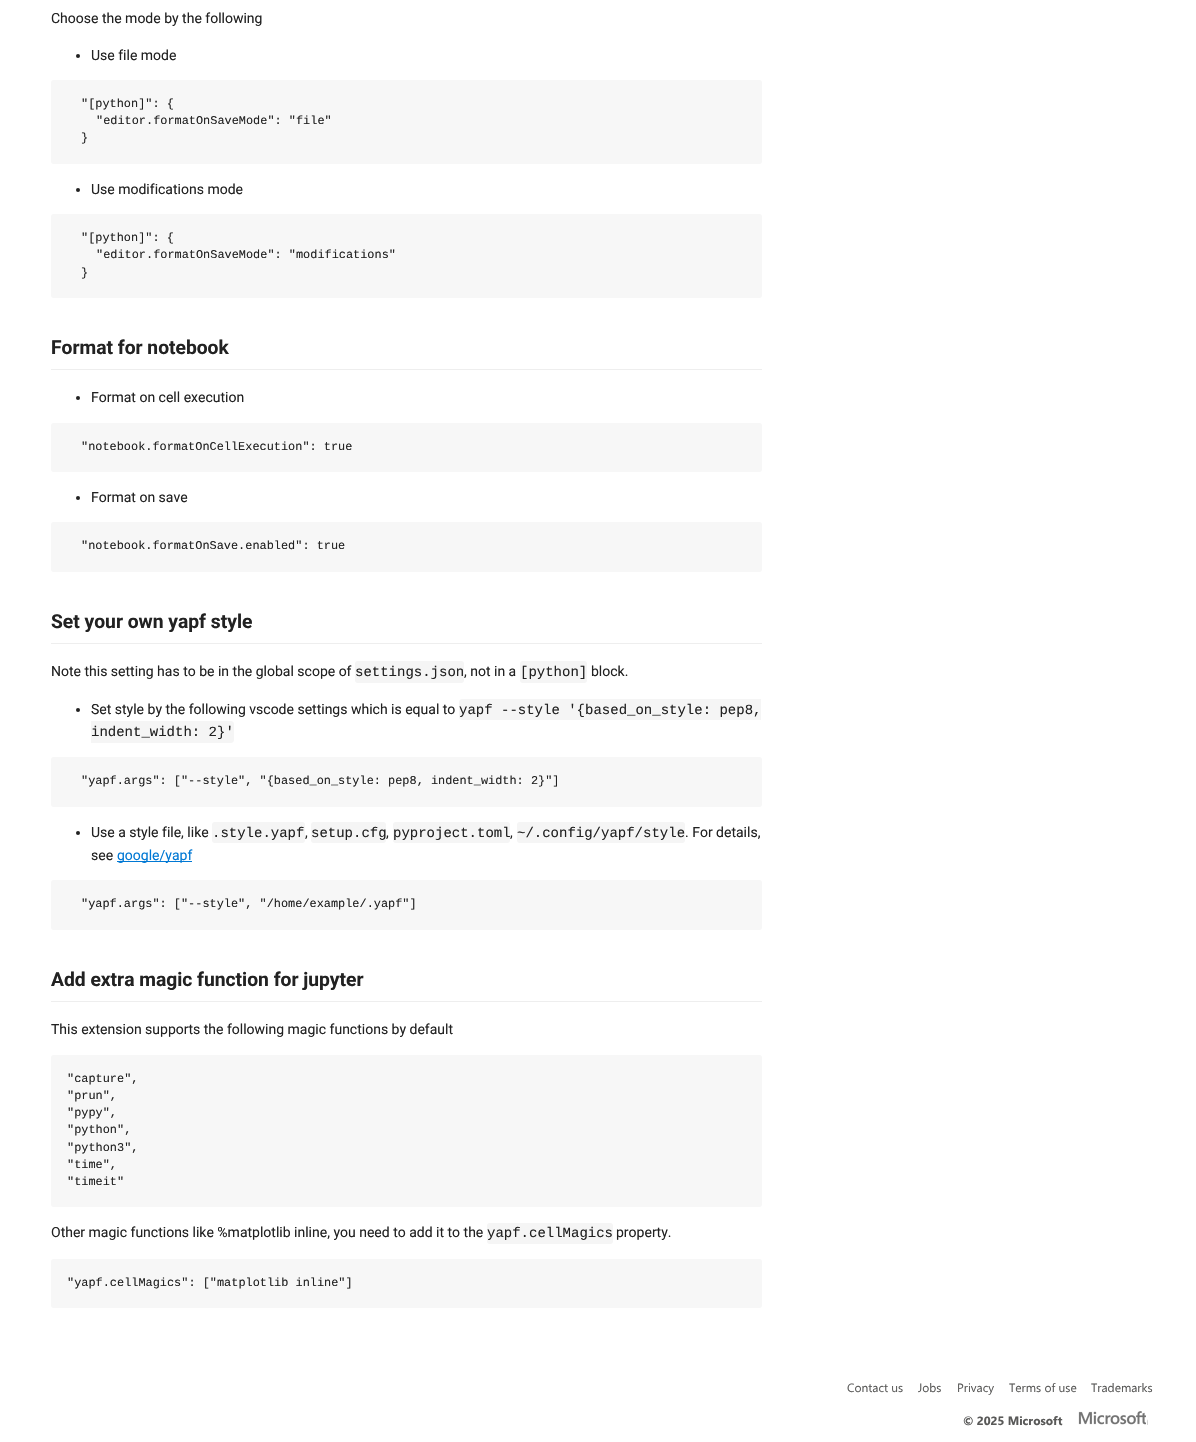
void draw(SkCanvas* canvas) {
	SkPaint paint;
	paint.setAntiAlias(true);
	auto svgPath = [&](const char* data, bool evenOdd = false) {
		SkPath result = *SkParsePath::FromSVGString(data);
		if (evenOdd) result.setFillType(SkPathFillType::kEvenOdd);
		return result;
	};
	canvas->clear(0xffffffff);
	SkFont f1(fontMgr->matchFamilyStyle("Roboto", SkFontStyle::Normal()), 14);
	f1.setSubpixel(true);
	paint.setColor(0xff222222);
	canvas->drawString("Choose the mode by the following", 51, 23, f1, paint);
	canvas->drawCircle(78, 56, 2, paint);
	canvas->drawString("Use file mode", 91, 60, f1, paint);
	paint.setColor(0xfff7f7f7);
	canvas->drawRoundRect(SkRect::MakeXYWH(51, 80, 711, 84), 3, 3, paint);
	SkFont f2(fontMgr->matchFamilyStyle("Liberation Mono", SkFontStyle::Normal()), 11.9);
	f2.setSubpixel(true);
	paint.setColor(0xff222222);
	canvas->drawString("\"[python]\": {", 81, 107, f2, paint);
	canvas->drawString("\"editor.formatOnSaveMode\": \"file\"", 96, 124, f2, paint);
	canvas->drawString("}", 81, 141, f2, paint);
	canvas->drawCircle(78, 190, 2, paint);
	canvas->drawString("Use modifications mode", 91, 194, f1, paint);
	paint.setColor(0xfff7f7f7);
	canvas->drawRoundRect(SkRect::MakeXYWH(51, 214, 711, 84), 3, 3, paint);
	paint.setColor(0xff222222);
	canvas->drawString("\"[python]\": {", 81, 241, f2, paint);
	canvas->drawString("\"editor.formatOnSaveMode\": \"modifications\"", 96, 258, f2, paint);
	canvas->drawString("}", 81, 276, f2, paint);
	paint.setColor(0xffeeeeee);
	canvas->drawRect(SkRect::MakeXYWH(51, 369, 711, 1), paint);
	SkFont f3(fontMgr->matchFamilyStyle("Roboto", SkFontStyle::Bold()), 19.25);
	f3.setSubpixel(true);
	paint.setColor(0xff222222);
	canvas->drawString("Format for notebook", 51, 354, f3, paint);
	canvas->drawCircle(78, 398, 2, paint);
	canvas->drawString("Format on cell execution", 91, 402, f1, paint);
	paint.setColor(0xfff7f7f7);
	canvas->drawRoundRect(SkRect::MakeXYWH(51, 423, 711, 49), 3, 3, paint);
	paint.setColor(0xff222222);
	canvas->drawString("\"notebook.formatOnCellExecution\": true", 81, 450, f2, paint);
	canvas->drawCircle(78, 498, 2, paint);
	canvas->drawString("Format on save", 91, 502, f1, paint);
	paint.setColor(0xfff7f7f7);
	canvas->drawRoundRect(SkRect::MakeXYWH(51, 522, 711, 50), 3, 3, paint);
	paint.setColor(0xff222222);
	canvas->drawString("\"notebook.formatOnSave.enabled\": true", 81, 549, f2, paint);
	paint.setColor(0xffeeeeee);
	canvas->drawRect(SkRect::MakeXYWH(51, 643, 711, 1), paint);
	paint.setColor(0xff222222);
	canvas->drawString("Set your own yapf style", 51, 628, f3, paint);
	canvas->drawString("Note this setting has to be in the global scope of", 51, 676, f1, paint);
	paint.setColor(0xfff5f5f5);
	canvas->drawRoundRect(SkRect::MakeXYWH(355, 661, 109, 22), 3, 3, paint);
	SkFont f4(fontMgr->matchFamilyStyle("Liberation Mono", SkFontStyle::Normal()), 14);
	f4.setSubpixel(true);
	paint.setColor(0xff222222);
	canvas->drawString("settings.json", 355, 676, f4, paint);
	canvas->drawString(", not in a", 464, 676, f1, paint);
	paint.setColor(0xfff5f5f5);
	canvas->drawRoundRect(SkRect::MakeXYWH(520, 661, 67, 22), 3, 3, paint);
	paint.setColor(0xff222222);
	canvas->drawString("[python]", 520, 676, f4, paint);
	canvas->drawString("block.", 591, 676, f1, paint);
	canvas->drawCircle(78, 710, 2, paint);
	canvas->drawString("Set style by the following vscode settings which is equal to", 91, 714, f1, paint);
	paint.setColor(0xfff5f5f5);
	canvas->drawPath(svgPath("M462 699H761V720H462C460.5 720 459 718.5 459 717V702C459 700.5 460.5 699 462 699Z"), paint);
	paint.setColor(0xff222222);
	canvas->drawString("yapf --style '{based_on_style: pep8,", 459, 714, f4, paint);
	paint.setColor(0xfff5f5f5);
	canvas->drawPath(svgPath("M91 721H231C232.5 721 234 722.5 234 724V740C234 741.5 232.5 743 231 743H91Z"), paint);
	paint.setColor(0xff222222);
	canvas->drawString("indent_width: 2}'", 91, 736, f4, paint);
	paint.setColor(0xfff7f7f7);
	canvas->drawRoundRect(SkRect::MakeXYWH(51, 757, 711, 50), 3, 3, paint);
	paint.setColor(0xff222222);
	canvas->drawString("\"yapf.args\": [\"--style\", \"{based_on_style: pep8, indent_width: 2}\"]", 81, 784, f2, paint);
	canvas->drawCircle(78, 833, 2, paint);
	canvas->drawString("Use a style file, like", 91, 837, f1, paint);
	paint.setColor(0xfff5f5f5);
	canvas->drawRoundRect(SkRect::MakeXYWH(212, 822, 93, 21), 3, 3, paint);
	paint.setColor(0xff222222);
	canvas->drawString(".style.yapf", 212, 837, f4, paint);
	paint.setColor(0xfff5f5f5);
	canvas->drawRoundRect(SkRect::MakeXYWH(311, 822, 75, 21), 3, 3, paint);
	paint.setColor(0xff222222);
	canvas->drawString("setup.cfg", 311, 837, f4, paint);
	paint.setColor(0xfff5f5f5);
	canvas->drawRoundRect(SkRect::MakeXYWH(393, 822, 117, 21), 3, 3, paint);
	paint.setColor(0xff222222);
	canvas->drawString("pyproject.toml", 393, 837, f4, paint);
	paint.setColor(0xfff5f5f5);
	canvas->drawRoundRect(SkRect::MakeXYWH(517, 822, 168, 21), 3, 3, paint);
	paint.setColor(0xff222222);
	canvas->drawString("~/.config/yapf/style", 517, 837, f4, paint);
	canvas->drawString(". For details,", 685, 837, f1, paint);
	canvas->drawString(",", 305, 837, f1, paint);
	canvas->drawString(",", 386, 837, f1, paint);
	canvas->drawString(",", 510, 837, f1, paint);
	canvas->drawString("see", 91, 860, f1, paint);
	paint.setColor(0xff0078d4);
	canvas->drawRect(SkRect::MakeXYWH(117, 861, 75, 1), paint);
	canvas->drawString("google/yapf", 117, 860, f1, paint);
	paint.setColor(0xfff7f7f7);
	canvas->drawRoundRect(SkRect::MakeXYWH(51, 880, 711, 50), 3, 3, paint);
	paint.setColor(0xff222222);
	canvas->drawString("\"yapf.args\": [\"--style\", \"/home/example/.yapf\"]", 81, 907, f2, paint);
	paint.setColor(0xffeeeeee);
	canvas->drawRect(SkRect::MakeXYWH(51, 1001, 711, 1), paint);
	paint.setColor(0xff222222);
	canvas->drawString("Add extra magic function for jupyter", 51, 986, f3, paint);
	canvas->drawString("This extension supports the following magic functions by default", 51, 1034, f1, paint);
	paint.setColor(0xfff7f7f7);
	canvas->drawRoundRect(SkRect::MakeXYWH(51, 1055, 711, 152), 3, 3, paint);
	paint.setColor(0xff222222);
	canvas->drawString("\"capture\",", 67, 1082, f2, paint);
	canvas->drawString("\"prun\",", 67, 1099, f2, paint);
	canvas->drawString("\"pypy\",", 67, 1116, f2, paint);
	canvas->drawString("\"python\",", 67, 1133, f2, paint);
	canvas->drawString("\"python3\",", 67, 1151, f2, paint);
	canvas->drawString("\"time\",", 67, 1168, f2, paint);
	canvas->drawString("\"timeit\"", 67, 1185, f2, paint);
	canvas->drawString("Other magic functions like %matplotlib inline, you need to add it to the", 51, 1237, f1, paint);
	paint.setColor(0xfff5f5f5);
	canvas->drawRoundRect(SkRect::MakeXYWH(487, 1223, 126, 21), 3, 3, paint);
	paint.setColor(0xff222222);
	canvas->drawString("yapf.cellMagics", 487, 1237, f4, paint);
	canvas->drawString("property.", 616, 1237, f1, paint);
	paint.setColor(0xfff7f7f7);
	canvas->drawRoundRect(SkRect::MakeXYWH(51, 1259, 711, 49), 3, 3, paint);
	paint.setColor(0xff222222);
	canvas->drawString("\"yapf.cellMagics\": [\"matplotlib inline\"]", 67, 1286, f2, paint);
	SkFont f5(fontMgr->matchFamilyStyle("Segoe UI", SkFontStyle::Normal()), 12);
	f5.setSubpixel(true);
	paint.setColor(0xff595958);
	canvas->drawString("Contact us", 847, 1392, f5, paint);
	canvas->drawString("Jobs", 918, 1392, f5, paint);
	canvas->drawString("Privacy", 957, 1392, f5, paint);
	canvas->drawString("Terms of use", 1009, 1392, f5, paint);
	canvas->drawString("Trademarks", 1091, 1392, f5, paint);
	SkFont f6(fontMgr->matchFamilyStyle("Segoe UI", SkFontStyle::Bold()), 12);
	f6.setSubpixel(true);
	canvas->drawString("© 2025 Microsoft", 963, 1425, f6, paint);
	canvas->drawImageRect(SkImages::DeferredFromEncodedData(SkData::MakeFromFileName("img1.png")), SkRect::MakeXYWH(1078, 1411, 70, 14), SkSamplingOptions());
}
